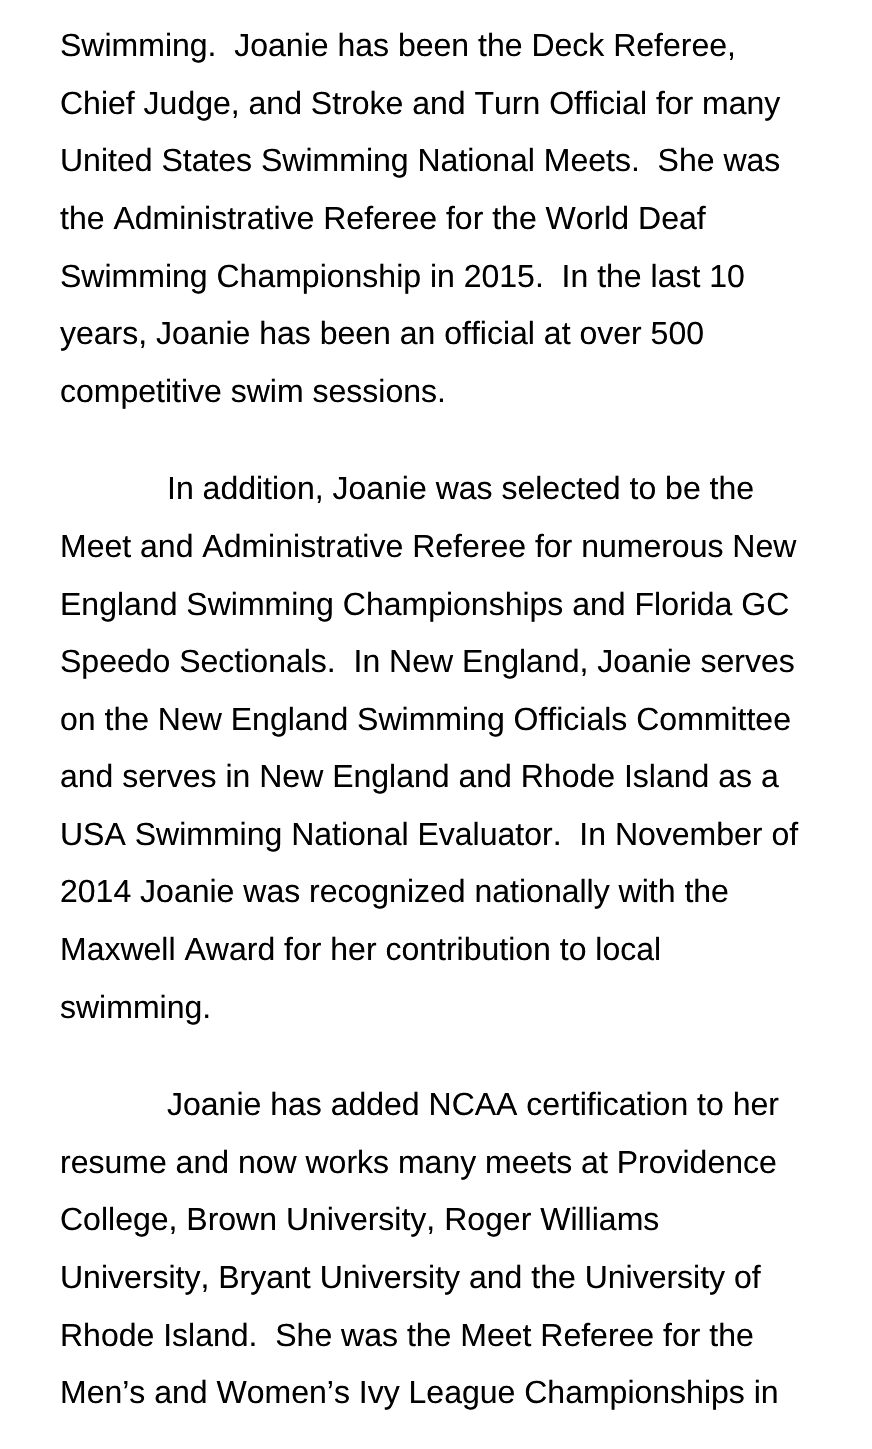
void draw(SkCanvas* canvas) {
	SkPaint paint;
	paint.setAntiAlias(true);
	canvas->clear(0xffffffff);
	SkFont f1(fontMgr->matchFamilyStyle("Liberation Sans", SkFontStyle::Normal()), 32);
	f1.setSubpixel(true);
	paint.setColor(0xff000000);
	canvas->drawString("Swimming.  Joanie has been the Deck Referee,", 60, 56, f1, paint);
	canvas->drawString("Chief Judge, and Stroke and Turn Official for many", 60, 114, f1, paint);
	canvas->drawString("United States Swimming National Meets.  She was", 60, 171, f1, paint);
	canvas->drawString("the Administrative Referee for the World Deaf", 60, 229, f1, paint);
	canvas->drawString("Swimming Championship in 2015.  In the last 10", 60, 287, f1, paint);
	canvas->drawString("years, Joanie has been an official at over 500", 60, 344, f1, paint);
	canvas->drawString("competitive swim sessions.", 60, 402, f1, paint);
	canvas->drawString("In addition, Joanie was selected to be the", 167, 499, f1, paint);
	canvas->drawString("Meet and Administrative Referee for numerous New", 60, 557, f1, paint);
	canvas->drawString("England Swimming Championships and Florida GC", 60, 615, f1, paint);
	canvas->drawString("Speedo Sectionals.  In New England, Joanie serves", 60, 672, f1, paint);
	canvas->drawString("on the New England Swimming Officials Committee", 60, 730, f1, paint);
	canvas->drawString("and serves in New England and Rhode Island as a", 60, 787, f1, paint);
	canvas->drawString("USA Swimming National Evaluator.  In November of", 60, 845, f1, paint);
	canvas->drawString("2014 Joanie was recognized nationally with the", 60, 902, f1, paint);
	canvas->drawString("Maxwell Award for her contribution to local", 60, 960, f1, paint);
	canvas->drawString("swimming.", 60, 1018, f1, paint);
	canvas->drawString("Joanie has added NCAA certification to her", 167, 1115, f1, paint);
	canvas->drawString("resume and now works many meets at Providence", 60, 1173, f1, paint);
	canvas->drawString("College, Brown University, Roger Williams", 60, 1230, f1, paint);
	canvas->drawString("University, Bryant University and the University of", 60, 1288, f1, paint);
	canvas->drawString("Rhode Island.  She was the Meet Referee for the", 60, 1346, f1, paint);
	canvas->drawString("Men’s and Women’s Ivy League Championships in", 60, 1403, f1, paint);
}
